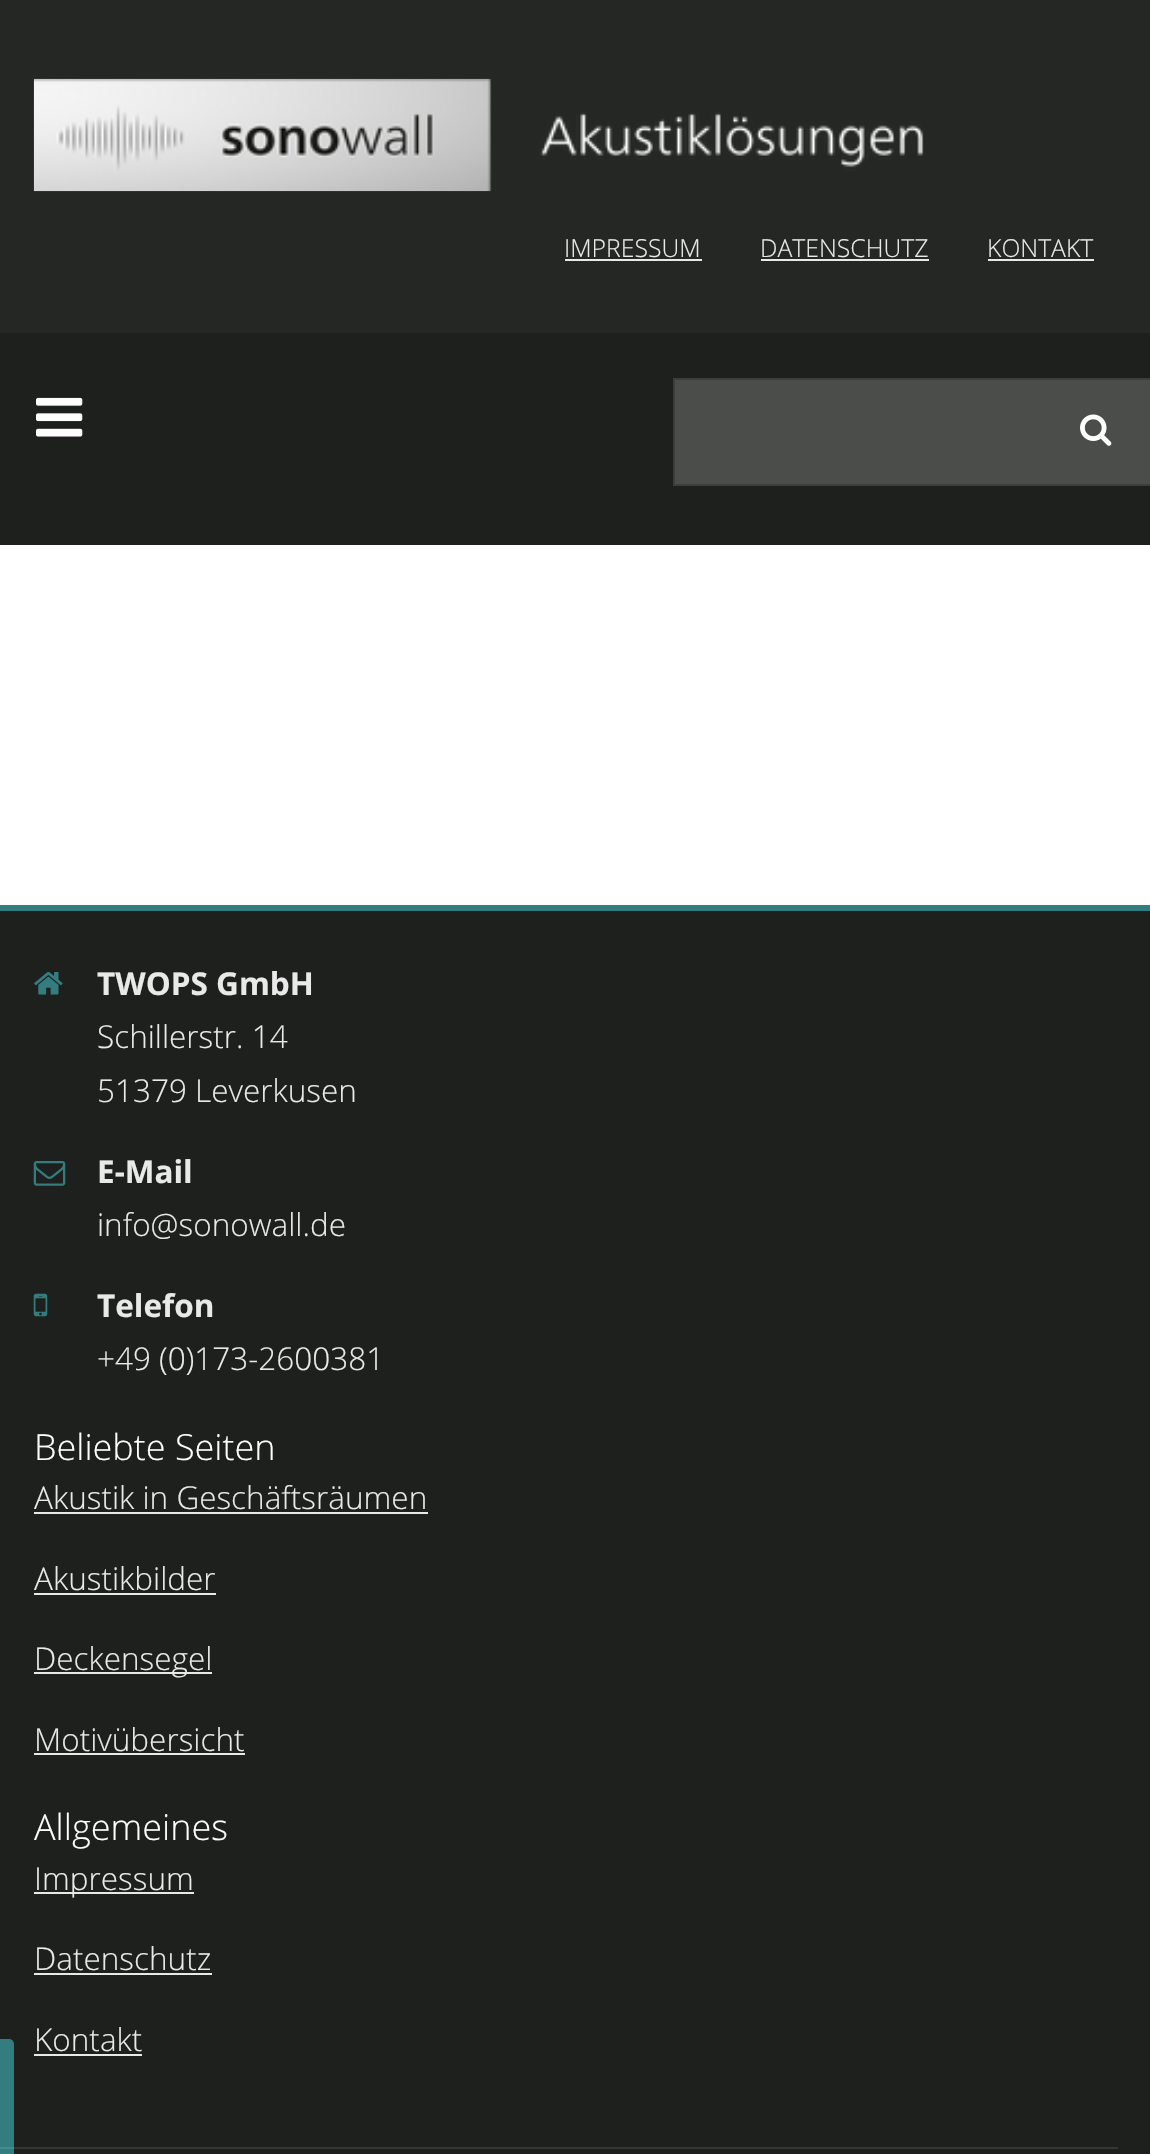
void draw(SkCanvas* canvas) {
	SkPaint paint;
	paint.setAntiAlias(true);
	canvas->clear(0xffffffff);
	paint.setColor(0xff242723);
	canvas->drawRect(SkRect::MakeXYWH(0, 0, 1150, 333), paint);
	canvas->drawImageRect(SkImages::DeferredFromEncodedData(SkData::MakeFromFileName("img1.png")), SkRect::MakeXYWH(33, 78, 891, 114), SkSamplingOptions());
	SkFont f1(fontMgr->matchFamilyStyle("Open Sans", SkFontStyle(300, SkFontStyle::kNormal_Width, SkFontStyle::kUpright_Slant)), 24.75);
	f1.setSubpixel(true);
	paint.setColor(0xffe8e9e8);
	canvas->drawString("IMPRESSUM", 564, 257, f1, paint);
	paint.setColor(0xffe9e9e9);
	canvas->drawRect(SkRect::MakeXYWH(565, 259, 137, 2), paint);
	paint.setColor(0xffe8e9e8);
	canvas->drawString("DATENSCHUTZ", 760, 257, f1, paint);
	paint.setColor(0xffe9e9e9);
	canvas->drawRect(SkRect::MakeXYWH(761, 259, 168, 2), paint);
	paint.setColor(0xffe8e9e8);
	canvas->drawString("KONTAKT", 987, 257, f1, paint);
	paint.setColor(0xffe9e9e9);
	canvas->drawRect(SkRect::MakeXYWH(988, 259, 106, 2), paint);
	paint.setColor(0xff1d201c);
	canvas->drawRect(SkRect::MakeXYWH(0, 333, 1150, 212), paint);
	canvas->drawImageRect(SkImages::DeferredFromEncodedData(SkData::MakeFromFileName("img2.png")), SkRect::MakeXYWH(36, 397, 47, 40), SkSamplingOptions());
	paint.setColor(0xff4a4d49);
	canvas->drawRect(SkRect::MakeXYWH(674, 379, 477, 106), paint);
	paint.setStroke(true);
	paint.setStrokeWidth(2);
	paint.setColor(0xff3b3e3a);
	canvas->drawRect(SkRect::MakeXYWH(674, 379, 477, 106), paint);
	canvas->drawImageRect(SkImages::DeferredFromEncodedData(SkData::MakeFromFileName("img3.png")), SkRect::MakeXYWH(1080, 414, 32, 32), SkSamplingOptions());
	paint.setStroke(false);
	paint.setColor(0xff1d201c);
	canvas->drawRect(SkRect::MakeXYWH(0, 911, 1150, 1243), paint);
	paint.setColor(0xff337d80);
	canvas->drawRoundRect(SkRect::MakeXYWH(-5, 2039, 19, 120), 5, 5, paint);
	paint.setColor(0xff478a8d);
	canvas->drawRect(SkRect::MakeXYWH(0, 2147, 14, 2), paint);
	paint.setColor(0xff337d80);
	canvas->drawRect(SkRect::MakeXYWH(0, 905, 1150, 6), paint);
	paint.setColor(0xff343633);
	canvas->drawRect(SkRect::MakeXYWH(14, 2147, 1104, 2), paint);
	canvas->drawImageRect(SkImages::DeferredFromEncodedData(SkData::MakeFromFileName("img4.png")), SkRect::MakeXYWH(34, 972, 29, 23), SkSamplingOptions());
	SkFont f2(fontMgr->matchFamilyStyle("Open Sans", SkFontStyle::Bold()), 31.5);
	f2.setSubpixel(true);
	paint.setColor(0xffe8e9e8);
	canvas->drawString("TWOPS GmbH", 97, 995, f2, paint);
	SkFont f3(fontMgr->matchFamilyStyle("Open Sans", SkFontStyle(300, SkFontStyle::kNormal_Width, SkFontStyle::kUpright_Slant)), 31.5);
	f3.setSubpixel(true);
	canvas->drawString("Schillerstr. 14", 97, 1048, f3, paint);
	canvas->drawString("51379 Leverkusen", 97, 1102, f3, paint);
	canvas->drawImageRect(SkImages::DeferredFromEncodedData(SkData::MakeFromFileName("img5.png")), SkRect::MakeXYWH(33, 1161, 33, 25), SkSamplingOptions());
	canvas->drawString("E-Mail", 97, 1183, f2, paint);
	canvas->drawString("info@sonowall.de", 97, 1236, f3, paint);
	canvas->drawImageRect(SkImages::DeferredFromEncodedData(SkData::MakeFromFileName("img6.png")), SkRect::MakeXYWH(33, 1293, 15, 24), SkSamplingOptions());
	canvas->drawString("Telefon", 97, 1317, f2, paint);
	canvas->drawString("+49 (0)173-2600381", 97, 1370, f3, paint);
	SkFont f4(fontMgr->matchFamilyStyle("Open Sans", SkFontStyle(300, SkFontStyle::kNormal_Width, SkFontStyle::kUpright_Slant)), 36);
	f4.setSubpixel(true);
	paint.setColor(0xffffffff);
	canvas->drawString("Beliebte Seiten", 34, 1460, f4, paint);
	paint.setColor(0xffe8e9e8);
	canvas->drawString("Akustik in Geschäftsräumen", 34, 1509, f3, paint);
	canvas->drawRect(SkRect::MakeXYWH(34, 1512, 394, 2), paint);
	canvas->drawString("Akustikbilder", 34, 1590, f3, paint);
	canvas->drawRect(SkRect::MakeXYWH(34, 1593, 182, 2), paint);
	canvas->drawRect(SkRect::MakeXYWH(34, 1672, 178, 2), paint);
	canvas->drawString("Deckensegel", 34, 1670, f3, paint);
	canvas->drawString("Motivübersicht", 34, 1751, f3, paint);
	canvas->drawRect(SkRect::MakeXYWH(34, 1753, 211, 2), paint);
	paint.setColor(0xffffffff);
	canvas->drawString("Allgemeines", 34, 1840, f4, paint);
	paint.setColor(0xffe8e9e8);
	canvas->drawRect(SkRect::MakeXYWH(34, 1892, 160, 2), paint);
	canvas->drawString("Impressum", 34, 1890, f3, paint);
	canvas->drawString("Datenschutz", 34, 1970, f3, paint);
	canvas->drawRect(SkRect::MakeXYWH(34, 1973, 178, 2), paint);
	canvas->drawString("Kontakt", 34, 2051, f3, paint);
	canvas->drawRect(SkRect::MakeXYWH(34, 2054, 108, 2), paint);
}
